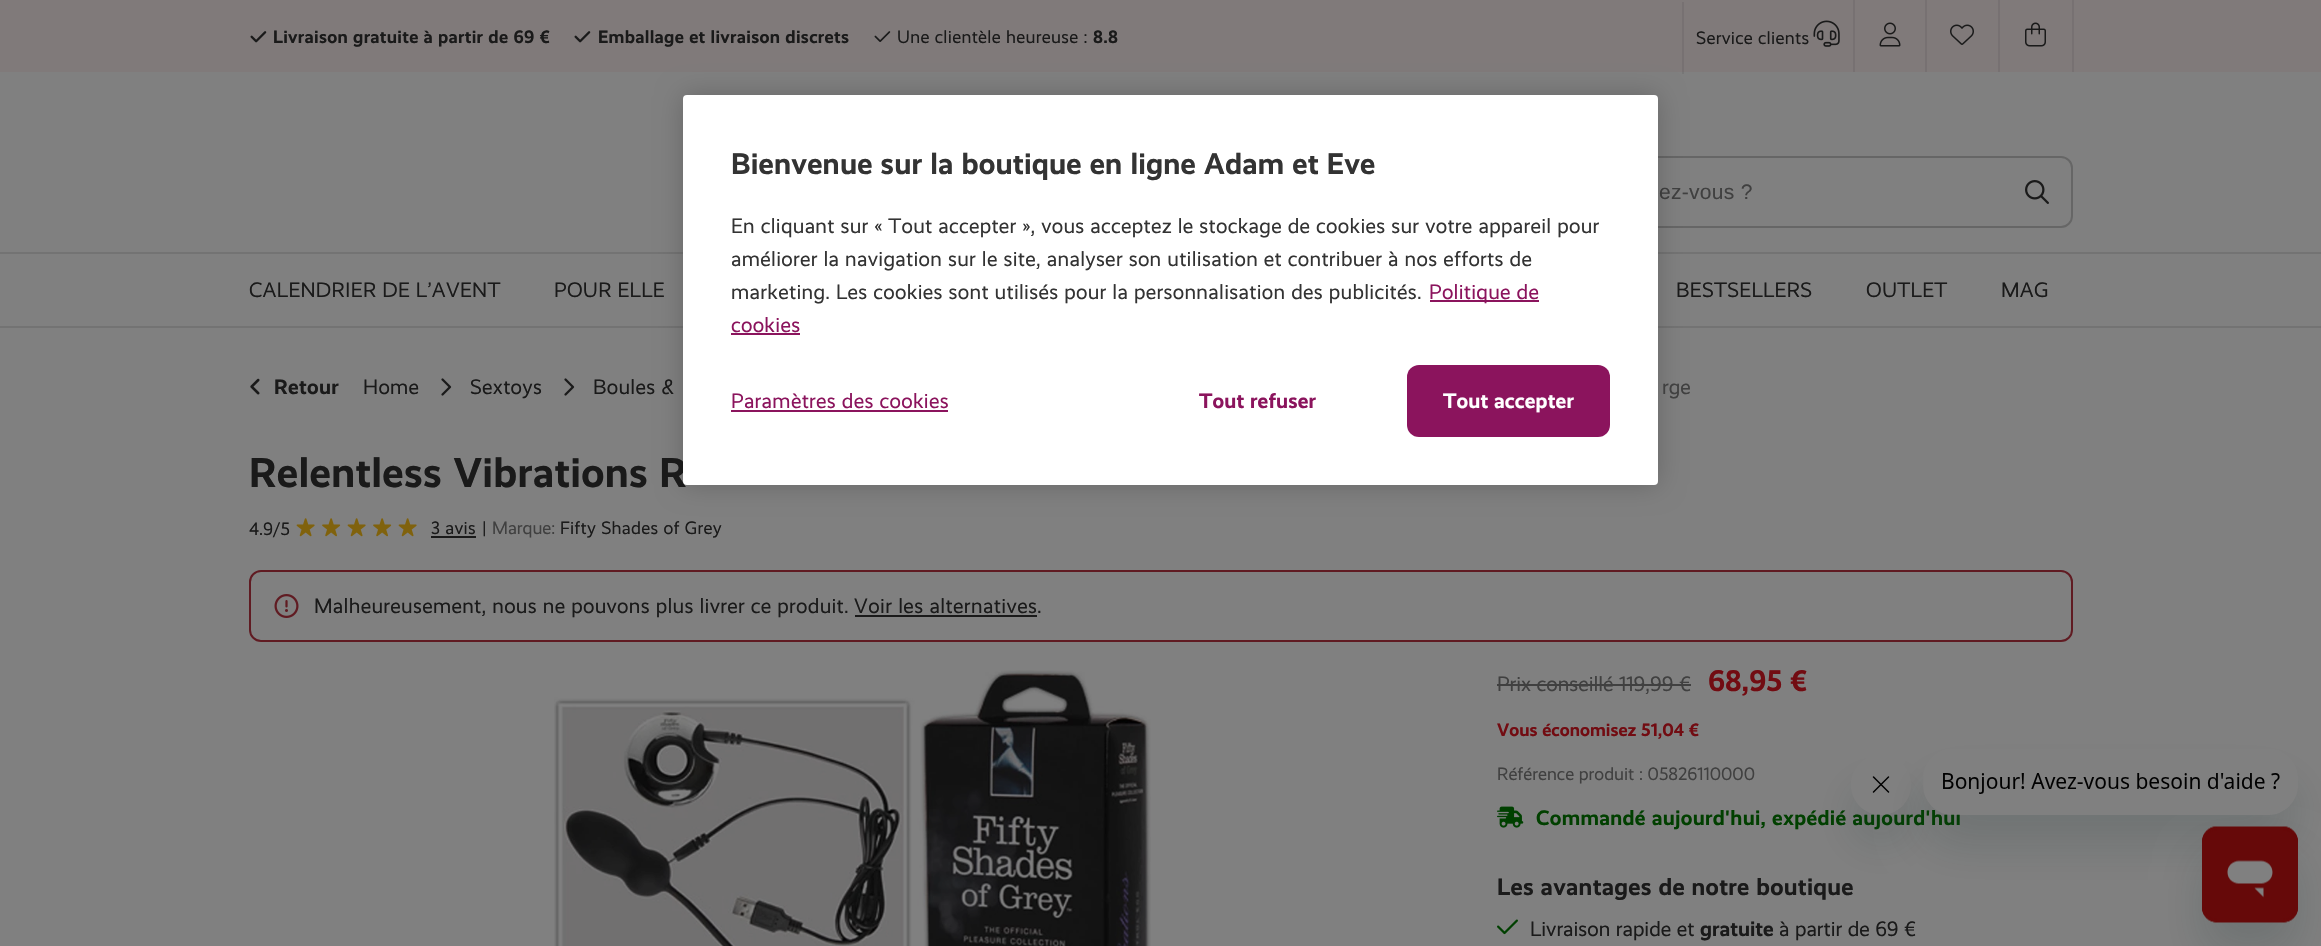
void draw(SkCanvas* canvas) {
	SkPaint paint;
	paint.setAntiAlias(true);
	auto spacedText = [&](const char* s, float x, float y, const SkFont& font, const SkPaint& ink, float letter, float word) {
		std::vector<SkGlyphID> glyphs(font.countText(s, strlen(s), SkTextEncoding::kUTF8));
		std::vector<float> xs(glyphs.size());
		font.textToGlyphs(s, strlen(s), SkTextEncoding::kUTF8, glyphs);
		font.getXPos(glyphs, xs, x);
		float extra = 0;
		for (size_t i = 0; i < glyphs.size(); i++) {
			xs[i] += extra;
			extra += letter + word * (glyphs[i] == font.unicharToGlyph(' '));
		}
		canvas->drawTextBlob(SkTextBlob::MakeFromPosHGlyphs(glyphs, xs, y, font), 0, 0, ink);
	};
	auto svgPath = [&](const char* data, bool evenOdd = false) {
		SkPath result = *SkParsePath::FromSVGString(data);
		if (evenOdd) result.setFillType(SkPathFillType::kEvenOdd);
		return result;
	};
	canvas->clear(0xff808080);
	paint.setColor(0xff777777);
	canvas->drawRect(SkRect::MakeXYWH(1682, 72, 2, 2), paint);
	paint.setColor(0xff807a7a);
	canvas->drawRect(SkRect::MakeXYWH(0, 0, 2321, 72), paint);
	paint.setColor(0xff777172);
	canvas->drawRect(SkRect::MakeXYWH(1682, 2, 2, 70), paint);
	canvas->drawImageRect(SkImages::DeferredFromEncodedData(SkData::MakeFromFileName("img1.png")), SkRect::MakeXYWH(250, 31, 17, 12), SkSamplingOptions());
	SkFont f1(fontMgr->matchFamilyStyle("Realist", SkFontStyle::Bold()), 18);
	f1.setSubpixel(true);
	paint.setColor(0xff1a1a1a);
	spacedText("Livraison gratuite à partir de 69 €", 273, 43, f1, paint, 0.3, 0);
	canvas->drawImageRect(SkImages::DeferredFromEncodedData(SkData::MakeFromFileName("img1.png")), SkRect::MakeXYWH(574, 31, 17, 12), SkSamplingOptions());
	spacedText("Emballage et livraison discrets", 598, 43, f1, paint, 0.3, 0);
	canvas->drawImageRect(SkImages::DeferredFromEncodedData(SkData::MakeFromFileName("img2.png")), SkRect::MakeXYWH(874, 31, 17, 11), SkSamplingOptions());
	SkFont f2(fontMgr->matchFamilyStyle("Realist", SkFontStyle::Normal()), 18);
	f2.setSubpixel(true);
	spacedText("Une clientèle heureuse :", 897, 43, f2, paint, 0.3, 0);
	spacedText("8.8", 1093, 43, f1, paint, 0.3, 0);
	spacedText("Service clients", 1696, 44, f2, paint, 0.3, 0);
	canvas->drawImageRect(SkImages::DeferredFromEncodedData(SkData::MakeFromFileName("img3.png")), SkRect::MakeXYWH(1813, 20, 27, 27), SkSamplingOptions());
	paint.setColor(0xff777172);
	canvas->drawRect(SkRect::MakeXYWH(1853, 0, 2, 72), paint);
	canvas->drawImageRect(SkImages::DeferredFromEncodedData(SkData::MakeFromFileName("img4.png")), SkRect::MakeXYWH(1879, 22, 22, 25), SkSamplingOptions());
	canvas->drawRect(SkRect::MakeXYWH(1925, 0, 2, 72), paint);
	canvas->drawImageRect(SkImages::DeferredFromEncodedData(SkData::MakeFromFileName("img5.png")), SkRect::MakeXYWH(1950, 24, 24, 21), SkSamplingOptions());
	canvas->drawRect(SkRect::MakeXYWH(2072, 0, 2, 72), paint);
	canvas->drawRect(SkRect::MakeXYWH(1998, 0, 2, 72), paint);
	canvas->drawImageRect(SkImages::DeferredFromEncodedData(SkData::MakeFromFileName("img6.png")), SkRect::MakeXYWH(2025, 22, 21, 25), SkSamplingOptions());
	paint.setStroke(true);
	paint.setStrokeWidth(2);
	paint.setColor(0xff666666);
	canvas->drawRoundRect(SkRect::MakeXYWH(1498, 157, 574, 70), 11, 11, paint);
	SkFont f3(fontMgr->matchFamilyStyle("Liberation Sans", SkFontStyle::Normal()), 21);
	f3.setSubpixel(true);
	paint.setStroke(false);
	paint.setColor(0xff404040);
	spacedText("ez-vous ?", 1659, 199, f3, paint, 0.3, 0);
	canvas->drawImageRect(SkImages::DeferredFromEncodedData(SkData::MakeFromFileName("img7.png")), SkRect::MakeXYWH(2025, 180, 24, 24), SkSamplingOptions());
	paint.setColor(0xff737373);
	canvas->drawRect(SkRect::MakeXYWH(0, 252, 2321, 2), paint);
	canvas->drawRect(SkRect::MakeXYWH(0, 326, 2321, 2), paint);
	SkFont f4(fontMgr->matchFamilyStyle("Realist", SkFontStyle::Normal()), 21);
	f4.setSubpixel(true);
	paint.setColor(0xff1a1a1a);
	spacedText("CALENDRIER DE L’AVENT", 249, 297, f4, paint, 0.3, 0);
	spacedText("POUR ELLE", 554, 297, f4, paint, 0.3, 0);
	spacedText("BESTSELLERS", 1676, 297, f4, paint, 0.3, 0);
	spacedText("OUTLET", 1866, 297, f4, paint, 0.3, 0);
	spacedText("MAG", 2001, 297, f4, paint, 0.3, 0);
	paint.setColor(0x33000000);
	paint.setMaskFilter(SkMaskFilter::MakeBlur(kNormal_SkBlurStyle, 13.5));
	canvas->drawRoundRect(SkRect::MakeXYWH(683, 95, 975, 390), 4, 4, paint);
	paint.setMaskFilter(nullptr);
	SkFont f5(fontMgr->matchFamilyStyle("Realist", SkFontStyle::Bold()), 42);
	f5.setSubpixel(true);
	paint.setColor(0xff1a1a1a);
	spacedText("Relentless Vibrations R", 249, 487, f5, paint, 0.3, 0);
	paint.setColor(0xffffffff);
	canvas->drawRoundRect(SkRect::MakeXYWH(683, 95, 975, 390), 4, 4, paint);
	SkFont f6(fontMgr->matchFamilyStyle("Realist", SkFontStyle::Bold()), 30);
	f6.setSubpixel(true);
	paint.setColor(0xff333333);
	spacedText("Bienvenue sur la boutique en ligne Adam et Eve", 731, 174, f6, paint, 0.15, 0);
	spacedText("En cliquant sur « Tout accepter », vous acceptez le stockage de cookies sur votre appareil pour", 731, 233, f4, paint, 0.3, 0);
	spacedText("améliorer la navigation sur le site, analyser son utilisation et contribuer à nos efforts de", 731, 266, f4, paint, 0.3, 0);
	spacedText("marketing. Les cookies sont utilisés pour la personnalisation des publicités.", 731, 299, f4, paint, 0.3, 0);
	paint.setColor(0xff8b145d);
	canvas->drawRect(SkRect::MakeXYWH(1430, 300, 109, 2), paint);
	spacedText("Politique de", 1429, 299, f4, paint, 0.3, 0);
	spacedText("cookies", 731, 332, f4, paint, 0.3, 0);
	canvas->drawRect(SkRect::MakeXYWH(731, 333, 69, 2), paint);
	spacedText("Paramètres des cookies", 731, 408, f4, paint, 0.3, 0);
	canvas->drawRect(SkRect::MakeXYWH(731, 410, 217, 2), paint);
	SkFont f7(fontMgr->matchFamilyStyle("Realist", SkFontStyle::Bold()), 21);
	f7.setSubpixel(true);
	spacedText("Tout refuser", 1199, 408, f7, paint, 0.15, 0);
	canvas->drawRoundRect(SkRect::MakeXYWH(1407, 365, 203, 72), 12, 12, paint);
	paint.setColor(0xffffffff);
	spacedText("Tout accepter", 1443, 408, f7, paint, 0.15, 0);
	canvas->drawImageRect(SkImages::DeferredFromEncodedData(SkData::MakeFromFileName("img8.png")), SkRect::MakeXYWH(250, 378, 10, 17), SkSamplingOptions());
	paint.setColor(0xff1a1a1a);
	spacedText("Retour", 274, 394, f7, paint, 0.3, 0);
	spacedText("Home", 363, 394, f4, paint, 0.3, 0);
	canvas->drawImageRect(SkImages::DeferredFromEncodedData(SkData::MakeFromFileName("img9.png")), SkRect::MakeXYWH(441, 378, 11, 18), SkSamplingOptions());
	spacedText("Sextoys", 470, 394, f4, paint, 0.3, 0);
	canvas->drawImageRect(SkImages::DeferredFromEncodedData(SkData::MakeFromFileName("img9.png")), SkRect::MakeXYWH(564, 378, 11, 18), SkSamplingOptions());
	spacedText("Boules &", 593, 394, f4, paint, 0.3, 0);
	paint.setColor(0xff404040);
	canvas->drawString("rge", 1662, 394, f4, paint);
	paint.setColor(0xff1a1a1a);
	canvas->drawString("4.9/5", 249, 535, f2, paint);
	canvas->drawImageRect(SkImages::DeferredFromEncodedData(SkData::MakeFromFileName("img10.png")), SkRect::MakeXYWH(296, 518, 19, 19), SkSamplingOptions());
	canvas->drawImageRect(SkImages::DeferredFromEncodedData(SkData::MakeFromFileName("img11.png")), SkRect::MakeXYWH(322, 518, 19, 19), SkSamplingOptions());
	canvas->drawImageRect(SkImages::DeferredFromEncodedData(SkData::MakeFromFileName("img10.png")), SkRect::MakeXYWH(347, 518, 19, 19), SkSamplingOptions());
	canvas->drawImageRect(SkImages::DeferredFromEncodedData(SkData::MakeFromFileName("img11.png")), SkRect::MakeXYWH(373, 518, 19, 19), SkSamplingOptions());
	canvas->drawImageRect(SkImages::DeferredFromEncodedData(SkData::MakeFromFileName("img10.png")), SkRect::MakeXYWH(398, 518, 19, 19), SkSamplingOptions());
	spacedText("3 avis", 431, 534, f2, paint, 0.3, 0);
	canvas->drawRect(SkRect::MakeXYWH(431, 536, 45, 2), paint);
	canvas->drawString("|", 482, 534, f2, paint);
	paint.setColor(0xff404040);
	canvas->drawString("Marque:", 492, 534, f2, paint);
	paint.setColor(0xff1a1a1a);
	spacedText("Fifty Shades of Grey", 560, 534, f2, paint, 0.3, 0);
	paint.setStroke(true);
	paint.setColor(0xff601b22);
	canvas->drawRoundRect(SkRect::MakeXYWH(250, 571, 1822, 70), 11, 11, paint);
	canvas->drawImageRect(SkImages::DeferredFromEncodedData(SkData::MakeFromFileName("img12.png")), SkRect::MakeXYWH(274, 594, 25, 24), SkSamplingOptions());
	paint.setStroke(false);
	paint.setColor(0xff1a1a1a);
	spacedText("Malheureusement, nous ne pouvons plus livrer ce produit.", 314, 613, f4, paint, 0.3, 0);
	spacedText("Voir les alternatives", 854, 613, f4, paint, 0.4, 0);
	canvas->drawRect(SkRect::MakeXYWH(855, 615, 182, 2), paint);
	spacedText(".", 1037, 613, f4, paint, 0.3, 0);
	canvas->drawImageRect(SkImages::DeferredFromEncodedData(SkData::MakeFromFileName("img13.png")), SkRect::MakeXYWH(554, 670, 597, 276), SkSamplingOptions());
	paint.setColor(0xff404040);
	canvas->drawString("Prix conseillé 119,99 €", 1497, 691, f4, paint);
	canvas->drawRect(SkRect::MakeXYWH(1497, 684, 194, 2), paint);
	paint.setColor(0xff720c12);
	canvas->drawString("68,95 €", 1708, 691, f6, paint);
	canvas->drawString("Vous économisez 51,04 €", 1497, 736, f1, paint);
	paint.setColor(0xff404040);
	canvas->drawString("Référence produit : 05826110000", 1497, 780, f2, paint);
	canvas->drawImageRect(SkImages::DeferredFromEncodedData(SkData::MakeFromFileName("img14.png")), SkRect::MakeXYWH(1497, 806, 27, 22), SkSamplingOptions());
	paint.setColor(0xff014000);
	spacedText("Commandé aujourd'hui, expédié aujourd'hui", 1536, 825, f7, paint, 0.3, 0);
	SkFont f8(fontMgr->matchFamilyStyle("Realist", SkFontStyle::Bold()), 24);
	f8.setSubpixel(true);
	paint.setColor(0xff1a1a1a);
	spacedText("Les avantages de notre boutique", 1497, 895, f8, paint, 0.3, 0);
	canvas->drawImageRect(SkImages::DeferredFromEncodedData(SkData::MakeFromFileName("img15.png")), SkRect::MakeXYWH(1497, 919, 21, 16), SkSamplingOptions());
	canvas->drawString("Livraison rapide et", 1530, 936, f4, paint);
	canvas->drawString("gratuite", 1700, 936, f7, paint);
	canvas->drawString("à partir de 69 €", 1779, 936, f4, paint);
	canvas->save();
	canvas->clipPath(svgPath("M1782 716H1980V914H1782ZM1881 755C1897.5 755 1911 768.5 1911 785C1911 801.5 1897.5 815 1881 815C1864.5 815 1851 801.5 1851 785C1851 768.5 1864.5 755 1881 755Z", true), true);
	paint.setColor(0x260c2527);
	paint.setMaskFilter(SkMaskFilter::MakeBlur(kNormal_SkBlurStyle, 22.5));
	canvas->drawRoundRect(SkRect::MakeXYWH(1851, 785, 60, 60), 30, 30, paint);
	paint.setMaskFilter(nullptr);
	canvas->restore();
	canvas->drawImageRect(SkImages::DeferredFromEncodedData(SkData::MakeFromFileName("img17.png")), SkRect::MakeXYWH(1872, 776, 18, 38), SkSamplingOptions());
	canvas->save();
	canvas->clipPath(svgPath("M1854 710H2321V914H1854ZM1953 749H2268C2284.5 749 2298 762.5 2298 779V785C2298 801.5 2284.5 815 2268 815H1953C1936.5 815 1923 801.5 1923 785V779C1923 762.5 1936.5 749 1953 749Z", true), true);
	paint.setMaskFilter(SkMaskFilter::MakeBlur(kNormal_SkBlurStyle, 22.5));
	canvas->drawRoundRect(SkRect::MakeXYWH(1923, 779, 375, 66), 30, 30, paint);
	paint.setMaskFilter(nullptr);
	canvas->restore();
	canvas->drawImageRect(SkImages::DeferredFromEncodedData(SkData::MakeFromFileName("img16.png")), SkRect::MakeXYWH(1924, 773, 356, 42), SkSamplingOptions());
	paint.setMaskFilter(SkMaskFilter::MakeBlur(kNormal_SkBlurStyle, 22.5));
	canvas->drawRoundRect(SkRect::MakeXYWH(2202, 857, 96, 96), 15, 15, paint);
	paint.setMaskFilter(nullptr);
	canvas->drawImageRect(SkImages::DeferredFromEncodedData(SkData::MakeFromFileName("img18.png")), SkRect::MakeXYWH(2202, 826, 96, 97), SkSamplingOptions());
}
